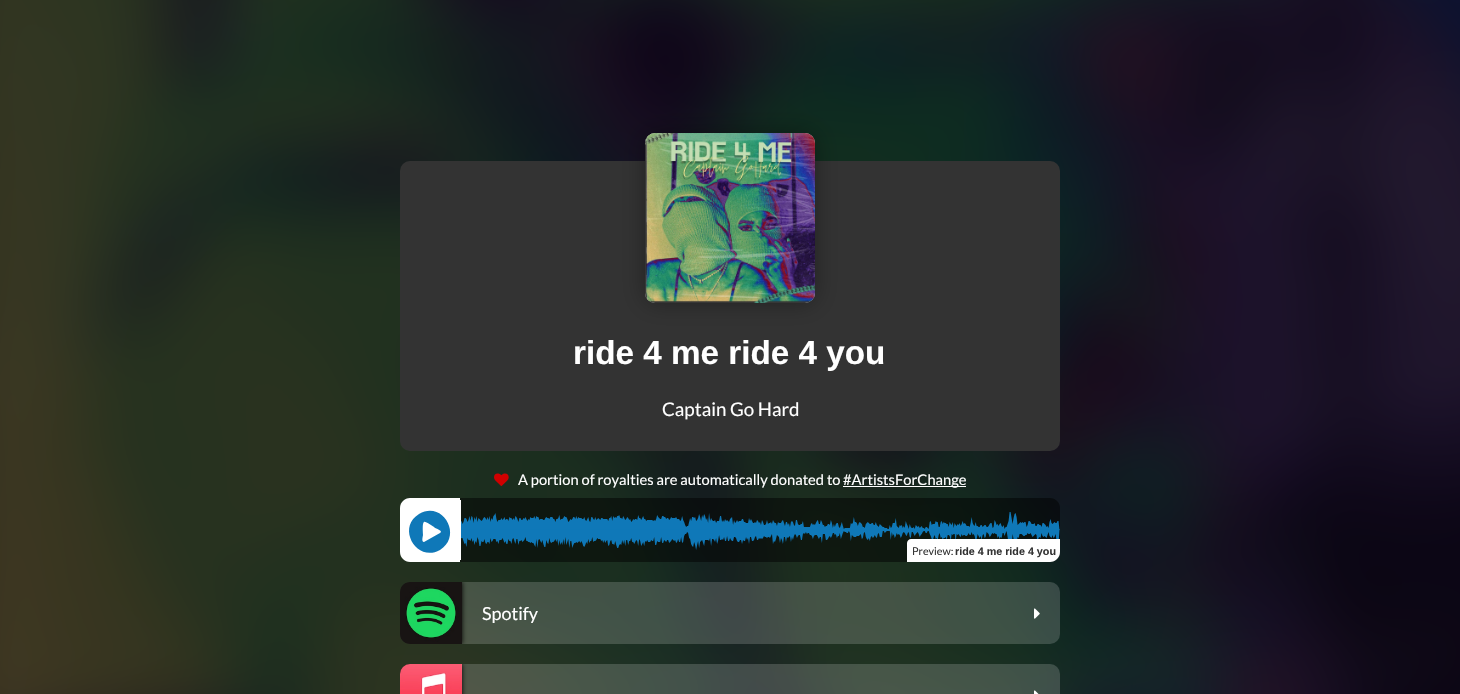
void draw(SkCanvas* canvas) {
	SkPaint paint;
	paint.setAntiAlias(true);
	auto svgPath = [&](const char* data, bool evenOdd = false) {
		SkPath result = *SkParsePath::FromSVGString(data);
		if (evenOdd) result.setFillType(SkPathFillType::kEvenOdd);
		return result;
	};
	canvas->clear(0xff000000);
	canvas->drawImageRect(SkImages::DeferredFromEncodedData(SkData::MakeFromFileName("img1.png")), SkRect::MakeXYWH(0, 0, 1460, 694), SkSamplingOptions());
	paint.setColor(0xff333333);
	canvas->drawRoundRect(SkRect::MakeXYWH(400, 161, 660, 290), 10, 10, paint);
	paint.setColor(0x59000000);
	paint.setMaskFilter(SkMaskFilter::MakeBlur(kNormal_SkBlurStyle, 12.5));
	canvas->drawRoundRect(SkRect::MakeXYWH(645, 133, 170, 170), 10, 10, paint);
	paint.setMaskFilter(nullptr);
	paint.setColor(0xffcccccc);
	canvas->drawRoundRect(SkRect::MakeXYWH(645, 133, 170, 170), 10, 10, paint);
	canvas->drawImageRect(SkImages::DeferredFromEncodedData(SkData::MakeFromFileName("img2.png")), SkRect::MakeXYWH(645, 133, 170, 170), SkSamplingOptions());
	SkFont f1(fontMgr->matchFamilyStyle("Liberation Sans", SkFontStyle::Bold()), 33.25);
	f1.setSubpixel(true);
	paint.setColor(0xffffffff);
	canvas->drawString("ride 4 me ride 4 you", 573, 364, f1, paint);
	SkFont f2(fontMgr->matchFamilyStyle("Lato", SkFontStyle::Normal()), 18.75);
	f2.setSubpixel(true);
	canvas->drawString("Captain Go Hard", 662, 416, f2, paint);
	canvas->drawImageRect(SkImages::DeferredFromEncodedData(SkData::MakeFromFileName("img3.png")), SkRect::MakeXYWH(494, 473, 15, 13), SkSamplingOptions());
	SkFont f3(fontMgr->matchFamilyStyle("Lato", SkFontStyle::Normal()), 14.7);
	f3.setSubpixel(true);
	canvas->drawString("A portion of royalties are automatically donated to", 518, 485, f3, paint);
	canvas->drawRect(SkRect::MakeXYWH(843, 486, 123, 1), paint);
	canvas->drawString("#ArtistsForChange", 843, 485, f3, paint);
	canvas->drawPath(svgPath("M410 498H460V562H410C404.5 562 400 557.5 400 552V508C400 502.5 404.5 498 410 498Z"), paint);
	paint.setColor(0xff0f78b8);
	canvas->drawPath(svgPath("M419 514C443 500 463 536 440 550C417 563 396 528 419 514ZM440 533C444 531 435 528 435 528C433 526 425 521 424 522C422 523 423 533 423 535C423 536 421 542 424 542Z"), paint);
	paint.setColor(0x80000000);
	canvas->drawPath(svgPath("M460 498H1050C1055.5 498 1060 502.5 1060 508V552C1060 557.5 1055.5 562 1050 562H460Z"), paint);
	paint.setColor(0xffffffff);
	canvas->drawRect(SkRect::MakeXYWH(460, 500, 1, 60), paint);
	canvas->drawImageRect(SkImages::DeferredFromEncodedData(SkData::MakeFromFileName("img4.png")), SkRect::MakeXYWH(461, 512, 599, 38), SkSamplingOptions());
	canvas->drawPath(svgPath("M911 539H1060V552C1060 557.5 1055.5 562 1050 562H907V543C907 541 909 539 911 539Z"), paint);
	SkFont f4(fontMgr->matchFamilyStyle("Lato", SkFontStyle::Normal()), 10.75);
	f4.setSubpixel(true);
	paint.setColor(0xff333333);
	canvas->drawString("Preview:", 912, 555, f4, paint);
	SkFont f5(fontMgr->matchFamilyStyle("Liberation Sans", SkFontStyle::Bold()), 10.75);
	f5.setSubpixel(true);
	canvas->drawString("ride 4 me ride 4 you", 955, 555, f5, paint);
	paint.setColor(0x2bffffff);
	canvas->drawRoundRect(SkRect::MakeXYWH(400, 582, 660, 62), 10, 10, paint);
	canvas->save();
	canvas->clipPath(svgPath("M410 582H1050C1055.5 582 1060 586.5 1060 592V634C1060 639.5 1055.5 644 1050 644H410C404.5 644 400 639.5 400 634V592C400 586.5 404.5 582 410 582Z"), true);
	paint.setColor(0xff000000);
	paint.setMaskFilter(SkMaskFilter::MakeBlur(kNormal_SkBlurStyle, 2.5));
	canvas->drawRect(SkRect::MakeXYWH(400, 582, 62, 62), paint);
	paint.setMaskFilter(nullptr);
	canvas->restore();
	canvas->drawImageRect(SkImages::DeferredFromEncodedData(SkData::MakeFromFileName("img5.png")), SkRect::MakeXYWH(400, 582, 62, 62), SkSamplingOptions());
	SkFont f6(fontMgr->matchFamilyStyle("Lato", SkFontStyle::Normal()), 18);
	f6.setSubpixel(true);
	paint.setColor(0xffffffff);
	canvas->drawString("Spotify", 482, 620, f6, paint);
	canvas->drawImageRect(SkImages::DeferredFromEncodedData(SkData::MakeFromFileName("img6.png")), SkRect::MakeXYWH(1034, 608, 6, 11), SkSamplingOptions());
	paint.setColor(0x2bffffff);
	canvas->drawRoundRect(SkRect::MakeXYWH(400, 664, 660, 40), 10, 10, paint);
	canvas->save();
	canvas->clipPath(svgPath("M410 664H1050C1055.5 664 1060 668.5 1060 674V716C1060 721.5 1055.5 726 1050 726H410C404.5 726 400 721.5 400 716V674C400 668.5 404.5 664 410 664Z"), true);
	paint.setColor(0xff000000);
	paint.setMaskFilter(SkMaskFilter::MakeBlur(kNormal_SkBlurStyle, 2.5));
	canvas->drawRect(SkRect::MakeXYWH(400, 664, 62, 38), paint);
	paint.setMaskFilter(nullptr);
	canvas->restore();
	canvas->drawImageRect(SkImages::DeferredFromEncodedData(SkData::MakeFromFileName("img7.png")), SkRect::MakeXYWH(400, 664, 62, 30), SkSamplingOptions());
	canvas->drawImageRect(SkImages::DeferredFromEncodedData(SkData::MakeFromFileName("img8.png")), SkRect::MakeXYWH(1034, 690, 5, 4), SkSamplingOptions());
}
